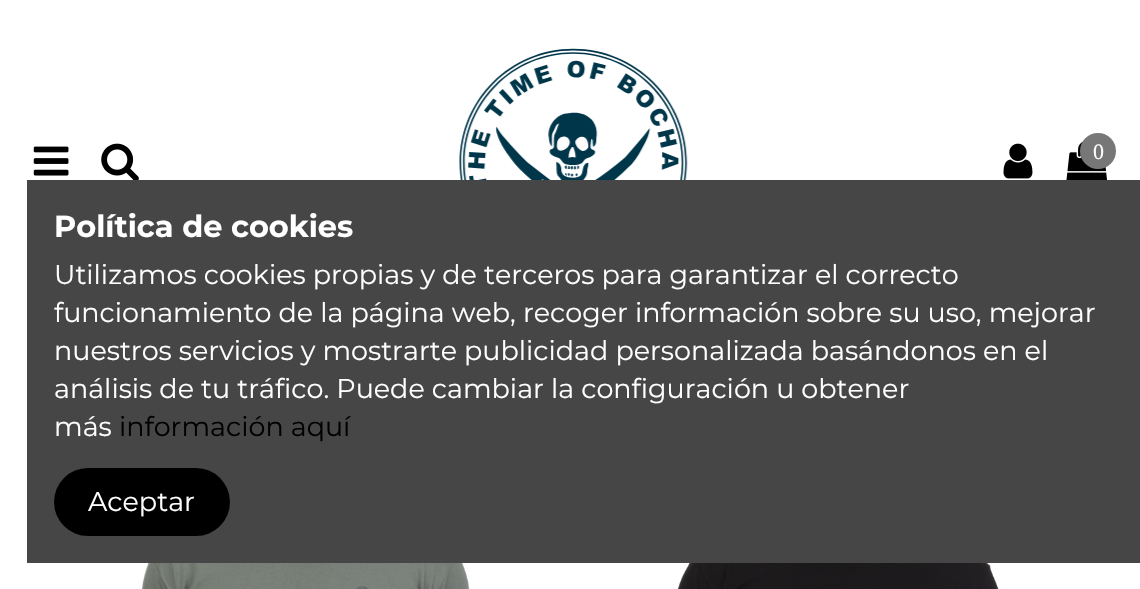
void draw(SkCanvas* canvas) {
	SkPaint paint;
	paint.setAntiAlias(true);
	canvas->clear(0xffffffff);
	canvas->drawImageRect(SkImages::DeferredFromEncodedData(SkData::MakeFromFileName("img1.png")), SkRect::MakeXYWH(33, 146, 36, 30), SkSamplingOptions());
	canvas->drawImageRect(SkImages::DeferredFromEncodedData(SkData::MakeFromFileName("img2.png")), SkRect::MakeXYWH(101, 143, 38, 37), SkSamplingOptions());
	canvas->drawImageRect(SkImages::DeferredFromEncodedData(SkData::MakeFromFileName("img3.png")), SkRect::MakeXYWH(459, 48, 229, 132), SkSamplingOptions());
	canvas->drawImageRect(SkImages::DeferredFromEncodedData(SkData::MakeFromFileName("img4.png")), SkRect::MakeXYWH(1003, 143, 30, 36), SkSamplingOptions());
	canvas->drawImageRect(SkImages::DeferredFromEncodedData(SkData::MakeFromFileName("img5.png")), SkRect::MakeXYWH(1066, 141, 41, 39), SkSamplingOptions());
	paint.setColor(0xff777777);
	canvas->drawCircle(1098, 151, 18, paint);
	SkFont f1(fontMgr->matchFamilyStyle("Liberation Serif", SkFontStyle::Normal()), 22);
	f1.setSubpixel(true);
	paint.setColor(0xffffffff);
	canvas->drawString("0", 1093, 159, f1, paint);
	canvas->drawImageRect(SkImages::DeferredFromEncodedData(SkData::MakeFromFileName("img6.png")), SkRect::MakeXYWH(34, 563, 517, 26), SkSamplingOptions());
	canvas->drawImageRect(SkImages::DeferredFromEncodedData(SkData::MakeFromFileName("img7.png")), SkRect::MakeXYWH(590, 563, 517, 26), SkSamplingOptions());
	paint.setColor(0xff464646);
	canvas->drawRect(SkRect::MakeXYWH(27, 180, 1113, 383), paint);
	SkFont f2(fontMgr->matchFamilyStyle("Montserrat", SkFontStyle::Bold()), 30.4);
	f2.setSubpixel(true);
	paint.setColor(0xffffffff);
	canvas->drawString("Política de cookies", 54, 237, f2, paint);
	SkFont f3(fontMgr->matchFamilyStyle("Montserrat", SkFontStyle::Normal()), 27);
	f3.setSubpixel(true);
	canvas->drawString("Utilizamos cookies propias y de terceros para garantizar el correcto", 54, 284, f3, paint);
	canvas->drawString("funcionamiento de la página web, recoger información sobre su uso, mejorar", 54, 322, f3, paint);
	canvas->drawString("nuestros servicios y mostrarte publicidad personalizada basándonos en el", 54, 360, f3, paint);
	canvas->drawString("análisis de tu tráfico. Puede cambiar la configuración u obtener", 54, 398, f3, paint);
	canvas->drawString("más", 54, 436, f3, paint);
	paint.setColor(0xff000000);
	canvas->drawString("información aquí", 119, 436, f3, paint);
	canvas->drawRoundRect(SkRect::MakeXYWH(54, 468, 176, 68), 34, 34, paint);
	paint.setColor(0xffffffff);
	canvas->drawString("Aceptar", 88, 511, f3, paint);
}
